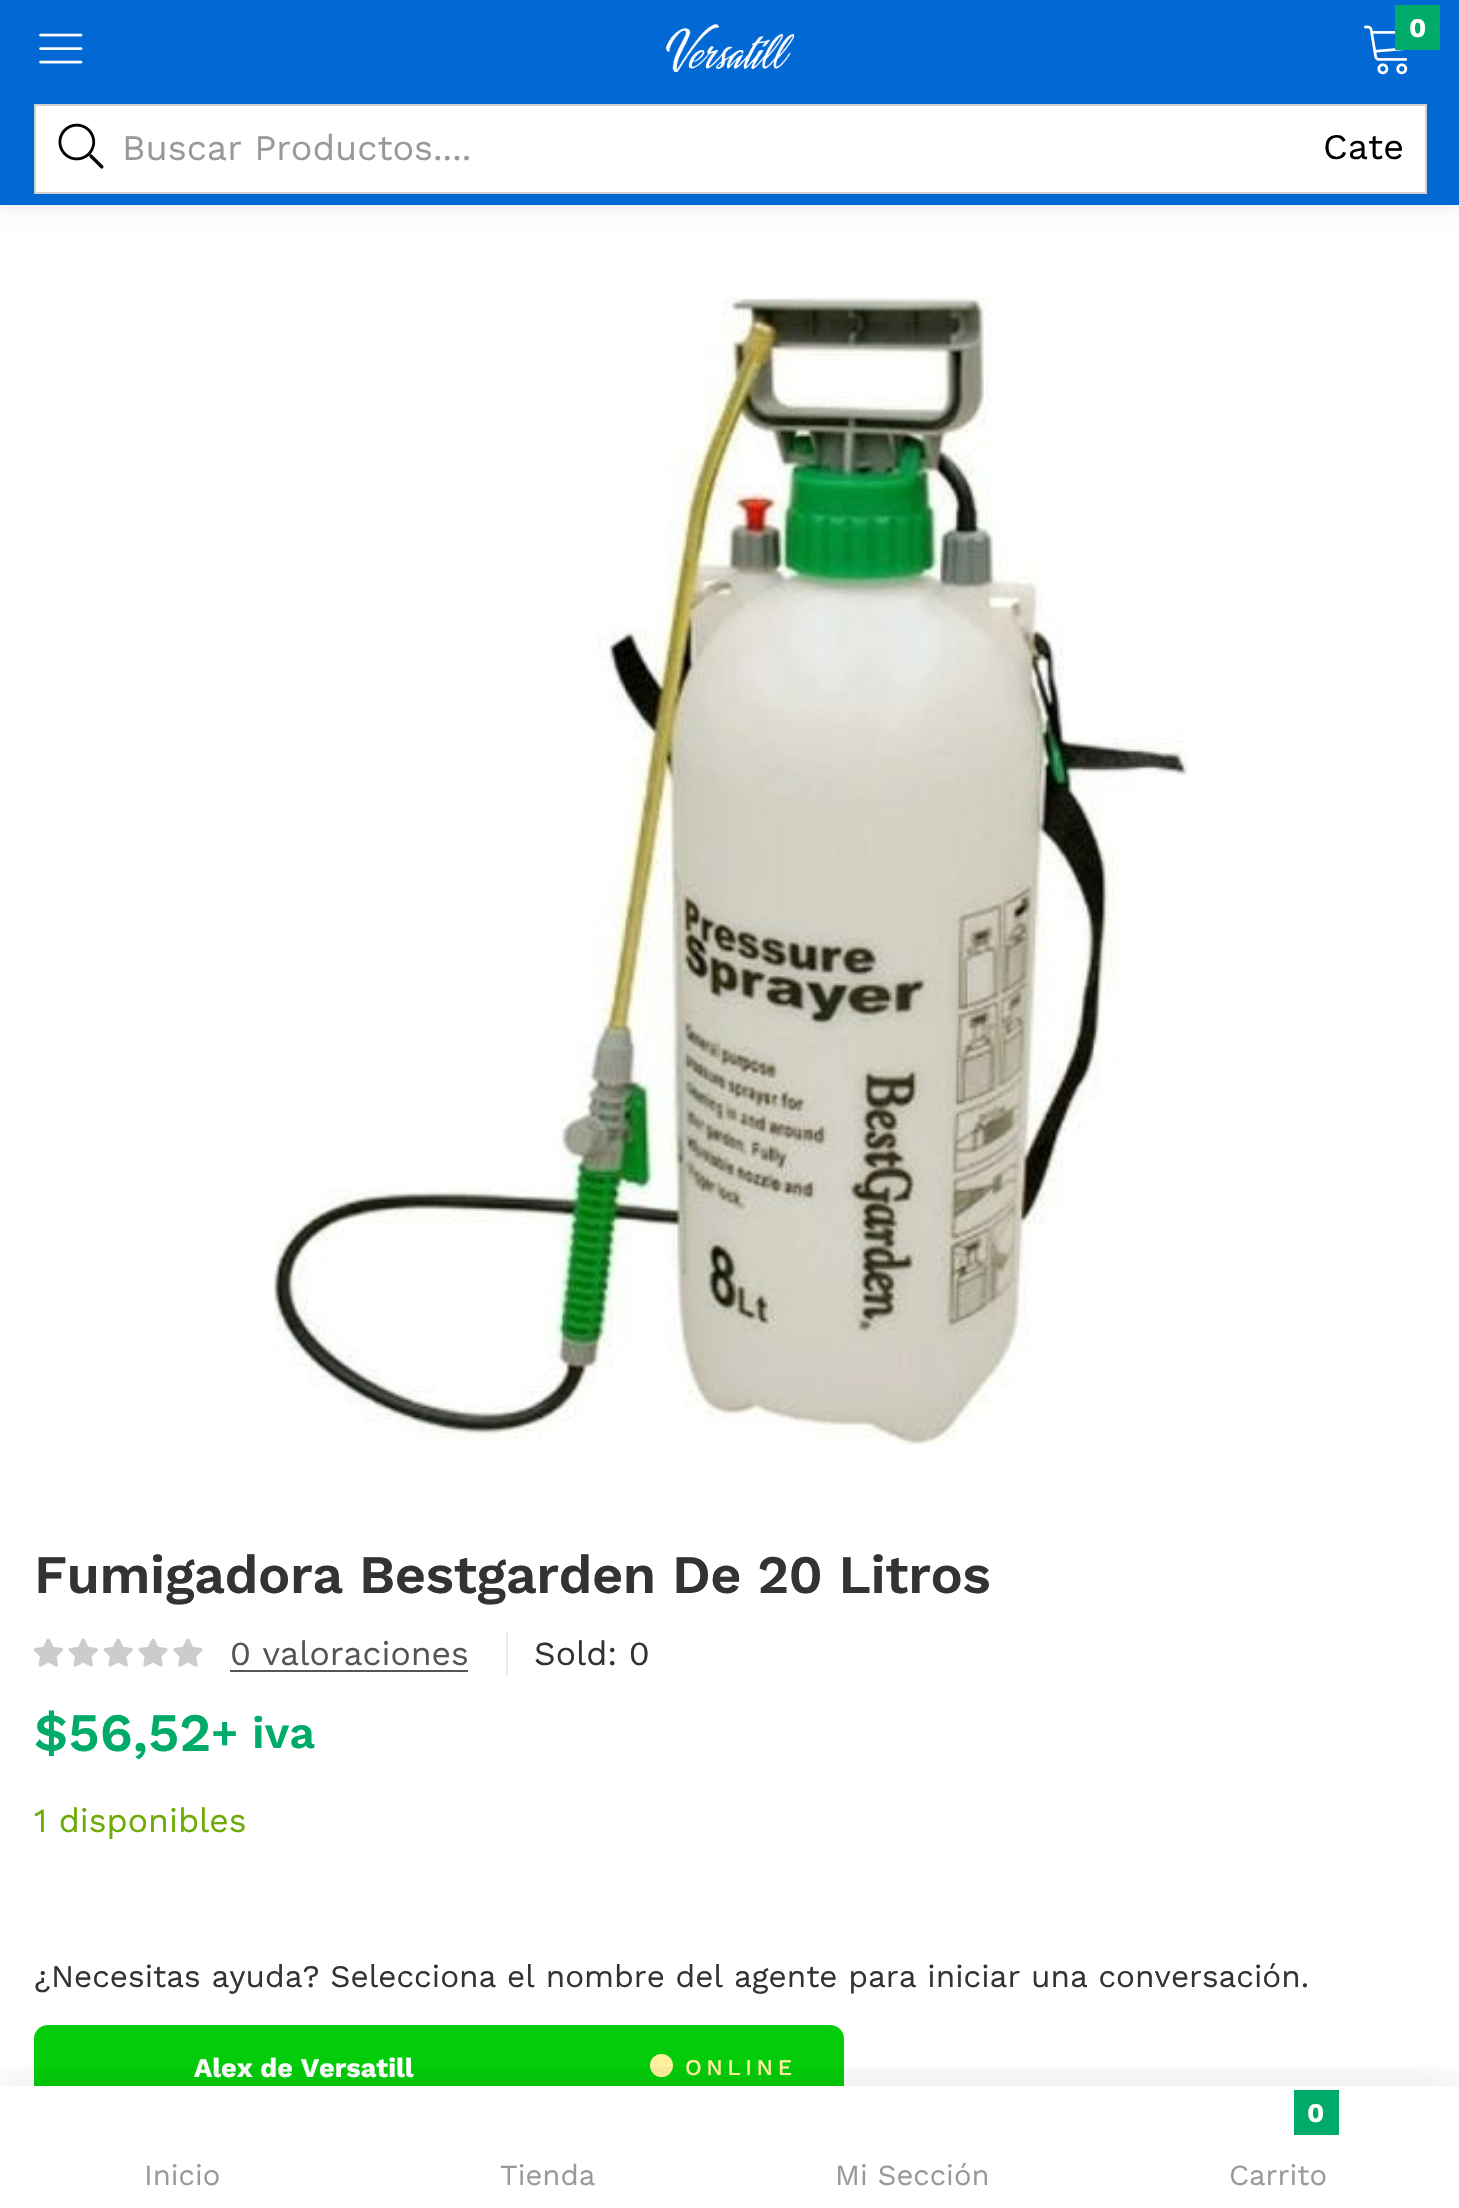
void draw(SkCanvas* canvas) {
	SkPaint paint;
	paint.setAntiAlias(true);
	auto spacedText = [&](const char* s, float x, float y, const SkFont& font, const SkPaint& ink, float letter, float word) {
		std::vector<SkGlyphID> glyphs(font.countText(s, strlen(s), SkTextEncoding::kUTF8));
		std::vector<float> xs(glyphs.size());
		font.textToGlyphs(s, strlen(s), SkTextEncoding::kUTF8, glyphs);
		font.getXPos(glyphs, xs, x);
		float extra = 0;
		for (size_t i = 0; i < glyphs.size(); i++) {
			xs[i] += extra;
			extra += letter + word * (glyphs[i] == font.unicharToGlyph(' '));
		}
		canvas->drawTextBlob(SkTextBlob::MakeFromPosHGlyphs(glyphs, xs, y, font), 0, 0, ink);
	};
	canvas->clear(0xffffffff);
	paint.setColor(0x1a000000);
	paint.setMaskFilter(SkMaskFilter::MakeBlur(kNormal_SkBlurStyle, 9));
	canvas->drawRect(SkRect::MakeXYWH(0, 0, 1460, 205), paint);
	paint.setMaskFilter(nullptr);
	paint.setColor(0xff0268d3);
	canvas->drawRect(SkRect::MakeXYWH(0, 0, 1459, 205), paint);
	canvas->drawImageRect(SkImages::DeferredFromEncodedData(SkData::MakeFromFileName("img1.png")), SkRect::MakeXYWH(39, 33, 44, 31), SkSamplingOptions());
	canvas->drawImageRect(SkImages::DeferredFromEncodedData(SkData::MakeFromFileName("img2.png")), SkRect::MakeXYWH(665, 24, 130, 49), SkSamplingOptions());
	canvas->drawImageRect(SkImages::DeferredFromEncodedData(SkData::MakeFromFileName("img3.png")), SkRect::MakeXYWH(1364, 25, 44, 50), SkSamplingOptions());
	paint.setColor(0xff00ab6a);
	canvas->drawRect(SkRect::MakeXYWH(1395, 5, 45, 45), paint);
	SkFont f1(fontMgr->matchFamilyStyle("Work Sans", SkFontStyle::Bold()), 27);
	f1.setSubpixel(true);
	paint.setColor(0xffffffff);
	canvas->drawString("0", 1409, 37, f1, paint);
	canvas->drawRect(SkRect::MakeXYWH(35, 105, 1391, 88), paint);
	paint.setStroke(true);
	paint.setStrokeWidth(2);
	paint.setColor(0xffd0d0d0);
	canvas->drawRect(SkRect::MakeXYWH(35, 105, 1391, 88), paint);
	canvas->drawImageRect(SkImages::DeferredFromEncodedData(SkData::MakeFromFileName("img4.png")), SkRect::MakeXYWH(58, 123, 46, 46), SkSamplingOptions());
	SkFont f2(fontMgr->matchFamilyStyle("Work Sans", SkFontStyle::Normal()), 36);
	f2.setSubpixel(true);
	paint.setStroke(false);
	paint.setColor(0xff999999);
	canvas->drawString("Buscar Productos....", 122, 160, f2, paint);
	paint.setColor(0xff000000);
	canvas->drawString("Cate", 1323, 159, f2, paint);
	canvas->drawImageRect(SkImages::DeferredFromEncodedData(SkData::MakeFromFileName("img5.png")), SkRect::MakeXYWH(274, 297, 915, 1148), SkSamplingOptions());
	SkFont f3(fontMgr->matchFamilyStyle("Work Sans", SkFontStyle(600, SkFontStyle::kNormal_Width, SkFontStyle::kUpright_Slant)), 54);
	f3.setSubpixel(true);
	paint.setColor(0xff333333);
	spacedText("Fumigadora Bestgarden De 20 Litros", 34, 1593, f3, paint, -0.45, 0);
	canvas->drawImageRect(SkImages::DeferredFromEncodedData(SkData::MakeFromFileName("img6.png")), SkRect::MakeXYWH(34, 1638, 169, 29), SkSamplingOptions());
	SkFont f4(fontMgr->matchFamilyStyle("Work Sans", SkFontStyle::Normal()), 33.75);
	f4.setSubpixel(true);
	paint.setColor(0xff555555);
	canvas->drawString("0 valoraciones", 230, 1665, f4, paint);
	canvas->drawRect(SkRect::MakeXYWH(230, 1670, 238, 2), paint);
	paint.setColor(0xffeaeaea);
	canvas->drawRect(SkRect::MakeXYWH(506, 1631, 2, 45), paint);
	paint.setColor(0xff333333);
	canvas->drawString("Sold: 0", 534, 1665, f4, paint);
	paint.setColor(0xff00ab6a);
	canvas->drawString("$56,52", 34, 1751, f3, paint);
	SkFont f5(fontMgr->matchFamilyStyle("Work Sans", SkFontStyle(600, SkFontStyle::kNormal_Width, SkFontStyle::kUpright_Slant)), 45);
	f5.setSubpixel(true);
	canvas->drawString("+ iva", 211, 1748, f5, paint);
	paint.setColor(0xff6daa03);
	canvas->drawString("1 disponibles", 34, 1832, f4, paint);
	SkFont f6(fontMgr->matchFamilyStyle("Work Sans", SkFontStyle::Normal()), 31.5);
	f6.setSubpixel(true);
	paint.setColor(0xff333333);
	canvas->drawString("¿Necesitas ayuda? Selecciona el nombre del agente para iniciar una conversación.", 34, 1987, f6, paint);
	paint.setColor(0xff03cc0b);
	canvas->drawRoundRect(SkRect::MakeXYWH(34, 2025, 810, 131), 14, 14, paint);
	paint.setColor(0xffffffff);
	canvas->drawString("Alex de Versatill", 194, 2077, f1, paint);
	paint.setColor(0xffffef9f);
	canvas->drawCircle(661.5, 2065.5, 11.5, paint);
	SkFont f7(fontMgr->matchFamilyStyle("Work Sans", SkFontStyle(500, SkFontStyle::kNormal_Width, SkFontStyle::kUpright_Slant)), 22.5);
	f7.setSubpixel(true);
	spacedText("ONLINE", 685, 2075, f7, paint, 4.5, 0);
	paint.setColor(0xffffffff);
	canvas->drawRect(SkRect::MakeXYWH(34, 2086, 810, 70), paint);
	canvas->save();
	canvas->clipRect(SkRect::MakeXYWH(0, 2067, 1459, 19));
	paint.setColor(0x1a000000);
	paint.setMaskFilter(SkMaskFilter::MakeBlur(kNormal_SkBlurStyle, 22.5));
	canvas->drawRect(SkRect::MakeXYWH(0, 2086, 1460, 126), paint);
	paint.setMaskFilter(nullptr);
	canvas->restore();
	SkFont f8(fontMgr->matchFamilyStyle("Work Sans", SkFontStyle::Normal()), 29.25);
	f8.setSubpixel(true);
	paint.setColor(0xff999999);
	canvas->drawString("Inicio", 144, 2185, f8, paint);
	canvas->drawString("Tienda", 500, 2185, f8, paint);
	canvas->drawString("Mi Sección", 835, 2185, f8, paint);
	paint.setColor(0xff00ab6a);
	canvas->drawRect(SkRect::MakeXYWH(1294, 2090, 45, 45), paint);
	paint.setColor(0xffffffff);
	canvas->drawString("0", 1307, 2122, f1, paint);
	paint.setColor(0xff999999);
	canvas->drawString("Carrito", 1229, 2185, f8, paint);
}
